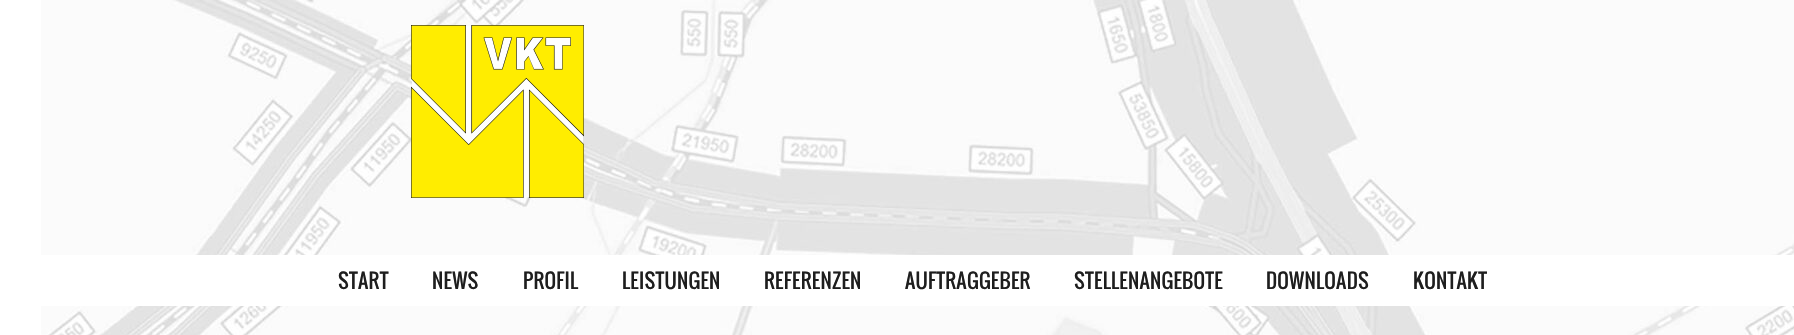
void draw(SkCanvas* canvas) {
	SkPaint paint;
	paint.setAntiAlias(true);
	auto spacedText = [&](const char* s, float x, float y, const SkFont& font, const SkPaint& ink, float letter, float word) {
		std::vector<SkGlyphID> glyphs(font.countText(s, strlen(s), SkTextEncoding::kUTF8));
		std::vector<float> xs(glyphs.size());
		font.textToGlyphs(s, strlen(s), SkTextEncoding::kUTF8, glyphs);
		font.getXPos(glyphs, xs, x);
		float extra = 0;
		for (size_t i = 0; i < glyphs.size(); i++) {
			xs[i] += extra;
			extra += letter + word * (glyphs[i] == font.unicharToGlyph(' '));
		}
		canvas->drawTextBlob(SkTextBlob::MakeFromPosHGlyphs(glyphs, xs, y, font), 0, 0, ink);
	};
	canvas->clear(0xffffffff);
	canvas->drawImageRect(SkImages::DeferredFromEncodedData(SkData::MakeFromFileName("img1.png")), SkRect::MakeXYWH(41, 0, 1753, 335), SkSamplingOptions());
	canvas->drawImageRect(SkImages::DeferredFromEncodedData(SkData::MakeFromFileName("img2.png")), SkRect::MakeXYWH(411, 25, 173, 173), SkSamplingOptions());
	paint.setColor(0xffffffff);
	canvas->drawRect(SkRect::MakeXYWH(41, 255, 1753, 51), paint);
	SkFont f1(fontMgr->matchFamilyStyle("Oswald", SkFontStyle::Normal()), 20);
	f1.setSubpixel(true);
	paint.setColor(0xff1e1e1e);
	spacedText("START", 338, 289, f1, paint, 0.25, 0);
	spacedText("NEWS", 432, 289, f1, paint, 0.25, 0);
	spacedText("PROFIL", 523, 289, f1, paint, 0.25, 0);
	spacedText("LEISTUNGEN", 622, 289, f1, paint, 0.25, 0);
	spacedText("REFERENZEN", 764, 289, f1, paint, 0.25, 0);
	spacedText("AUFTRAGGEBER", 905, 289, f1, paint, 0.25, 0);
	spacedText("STELLENANGEBOTE", 1074, 289, f1, paint, 0.25, 0);
	spacedText("DOWNLOADS", 1266, 289, f1, paint, 0.25, 0);
	spacedText("KONTAKT", 1413, 289, f1, paint, 0.25, 0);
}
